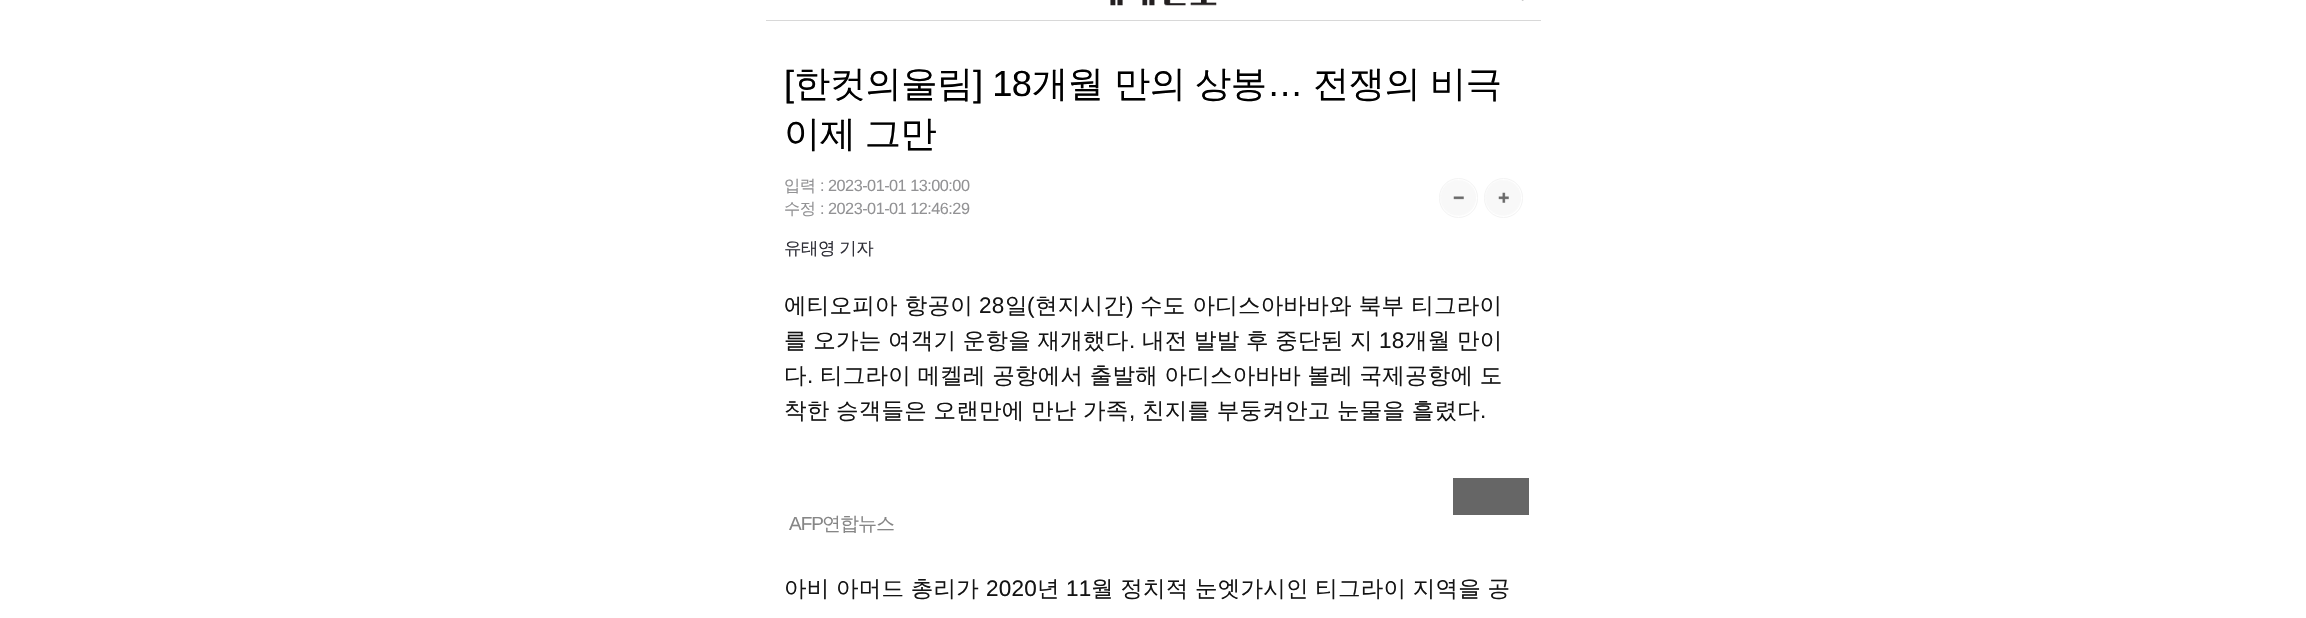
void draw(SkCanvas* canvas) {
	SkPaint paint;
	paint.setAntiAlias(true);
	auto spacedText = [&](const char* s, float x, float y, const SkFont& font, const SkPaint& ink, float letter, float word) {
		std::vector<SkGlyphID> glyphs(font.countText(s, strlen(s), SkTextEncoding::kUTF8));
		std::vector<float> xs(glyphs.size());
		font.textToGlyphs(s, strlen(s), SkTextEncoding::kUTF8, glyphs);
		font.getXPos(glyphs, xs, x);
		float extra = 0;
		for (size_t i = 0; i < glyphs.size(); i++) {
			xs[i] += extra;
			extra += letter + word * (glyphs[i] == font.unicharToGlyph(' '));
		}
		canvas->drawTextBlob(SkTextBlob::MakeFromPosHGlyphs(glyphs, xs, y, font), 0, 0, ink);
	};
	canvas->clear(0xffffffff);
	paint.setColor(0xffd8d8d8);
	canvas->drawRect(SkRect::MakeXYWH(766, 20, 775, 1), paint);
	canvas->drawImageRect(SkImages::DeferredFromEncodedData(SkData::MakeFromFileName("img1.png")), SkRect::MakeXYWH(1110, 0, 107, 6), SkSamplingOptions());
	canvas->drawImageRect(SkImages::DeferredFromEncodedData(SkData::MakeFromFileName("img2.png")), SkRect::MakeXYWH(1521, 0, 3, 1), SkSamplingOptions());
	SkFont f1(fontMgr->matchFamilyStyle("Liberation Sans", SkFontStyle::Normal()), 36.25);
	f1.setSubpixel(true);
	paint.setColor(0xff000000);
	spacedText("[", 784, 96, f1, paint, -0.5, 0);
	SkFont f2(fontMgr->matchFamilyStyle("WenQuanYi Zen Hei", SkFontStyle(500, SkFontStyle::kNormal_Width, SkFontStyle::kUpright_Slant)), 36.25);
	f2.setSubpixel(true);
	spacedText("한컷의울림", 794, 96, f2, paint, -0.5, 0);
	spacedText("] 18", 973, 96, f1, paint, -0.5, 0);
	spacedText("개월", 1032, 96, f2, paint, -0.5, 0);
	spacedText("만의", 1114, 96, f2, paint, -0.5, 0);
	spacedText("상봉", 1195, 96, f2, paint, -0.5, 0);
	spacedText("…", 1267, 96, f1, paint, -0.5, 0);
	spacedText("전쟁의", 1313, 96, f2, paint, -0.5, 0);
	spacedText("비극", 1430, 96, f2, paint, -0.5, 0);
	spacedText("이제 그만", 784, 146, f2, paint, -0.5, -1);
	SkFont f3(fontMgr->matchFamilyStyle("WenQuanYi Zen Hei", SkFontStyle(500, SkFontStyle::kNormal_Width, SkFontStyle::kUpright_Slant)), 16.25);
	f3.setSubpixel(true);
	paint.setColor(0xff929294);
	spacedText("입력", 784, 191, f3, paint, -0.5, 0);
	SkFont f4(fontMgr->matchFamilyStyle("Liberation Sans", SkFontStyle::Normal()), 16.25);
	f4.setSubpixel(true);
	spacedText(": 2023-01-01 13:00:00", 820, 191, f4, paint, -0.5, 0);
	spacedText("수정", 784, 214, f3, paint, -0.5, 0);
	spacedText(": 2023-01-01 12:46:29", 820, 214, f4, paint, -0.5, 0);
	paint.setStroke(true);
	paint.setStrokeWidth(1);
	paint.setColor(0xfff3f3f3);
	canvas->drawRoundRect(SkRect::MakeXYWH(1439.5, 178.5, 38, 39), 19, 19, paint);
	canvas->drawImageRect(SkImages::DeferredFromEncodedData(SkData::MakeFromFileName("img3.png")), SkRect::MakeXYWH(1440, 180, 36, 36), SkSamplingOptions());
	canvas->drawRoundRect(SkRect::MakeXYWH(1484.5, 178.5, 38, 39), 19, 19, paint);
	canvas->drawImageRect(SkImages::DeferredFromEncodedData(SkData::MakeFromFileName("img4.png")), SkRect::MakeXYWH(1485, 180, 36, 36), SkSamplingOptions());
	SkFont f5(fontMgr->matchFamilyStyle("WenQuanYi Zen Hei", SkFontStyle(500, SkFontStyle::kNormal_Width, SkFontStyle::kUpright_Slant)), 17.5);
	f5.setSubpixel(true);
	paint.setStroke(false);
	paint.setColor(0xff303038);
	spacedText("유태영 기자", 784, 254, f5, paint, -0.5, -0.5);
	SkFont f6(fontMgr->matchFamilyStyle("WenQuanYi Zen Hei", SkFontStyle(500, SkFontStyle::kNormal_Width, SkFontStyle::kUpright_Slant)), 22.5);
	f6.setSubpixel(true);
	paint.setColor(0xff141414);
	spacedText("에티오피아 항공이", 784, 313, f6, paint, 0.25, 0);
	SkFont f7(fontMgr->matchFamilyStyle("Liberation Sans", SkFontStyle::Normal()), 22.5);
	f7.setSubpixel(true);
	spacedText("28", 979, 313, f7, paint, 0.25, 0);
	spacedText("일", 1005, 313, f6, paint, 0.25, 0);
	spacedText("(", 1027, 313, f7, paint, 0.25, 0);
	spacedText("현지시간", 1035, 313, f6, paint, 0.25, 0);
	spacedText(")", 1126, 313, f7, paint, 0.25, 0);
	spacedText("수도 아디스아바바와 북부 티그라이", 1140, 313, f6, paint, 0.25, 0);
	spacedText("를 오가는 여객기 운항을 재개했다", 784, 348, f6, paint, 0.25, -0.5);
	spacedText(".", 1129, 348, f7, paint, 0.25, 0);
	spacedText("내전 발발 후 중단된 지", 1142, 348, f6, paint, 0.25, -0.5);
	spacedText("18", 1379, 348, f7, paint, 0.25, 0);
	spacedText("개월 만이", 1405, 348, f6, paint, 0.25, -0.5);
	spacedText("다", 784, 383, f6, paint, 0.25, 0);
	spacedText(".", 807, 383, f7, paint, 0.25, 0);
	spacedText("티그라이 메켈레 공항에서 출발해 아디스아바바 볼레 국제공항에 도", 820, 383, f6, paint, 0.25, -0.5);
	spacedText("착한 승객들은 오랜만에 만난 가족", 784, 418, f6, paint, 0.25, -0.5);
	spacedText(",", 1129, 418, f7, paint, 0.25, 0);
	spacedText("친지를 부둥켜안고 눈물을 흘렸다", 1142, 418, f6, paint, 0.25, -0.5);
	spacedText(".", 1480, 418, f7, paint, 0.25, 0);
	paint.setColor(0xff666666);
	canvas->drawRect(SkRect::MakeXYWH(1453, 478, 76, 37), paint);
	SkFont f8(fontMgr->matchFamilyStyle("Liberation Sans", SkFontStyle::Normal()), 19);
	f8.setSubpixel(true);
	paint.setColor(0xff868686);
	spacedText("AFP", 789, 530, f8, paint, -1, 0);
	SkFont f9(fontMgr->matchFamilyStyle("WenQuanYi Zen Hei", SkFontStyle(500, SkFontStyle::kNormal_Width, SkFontStyle::kUpright_Slant)), 19);
	f9.setSubpixel(true);
	spacedText("연합뉴스", 822, 530, f9, paint, -1, 0);
	paint.setColor(0xff141414);
	spacedText("아비 아머드 총리가", 784, 596, f6, paint, 0.25, -0.5);
	spacedText("2020", 986, 596, f7, paint, 0.25, 0);
	spacedText("년", 1037, 596, f6, paint, 0.25, 0);
	spacedText("11", 1066, 596, f7, paint, 0.25, 0);
	spacedText("월 정치적 눈엣가시인 티그라이 지역을 공", 1091, 596, f6, paint, 0.25, -0.5);
}
